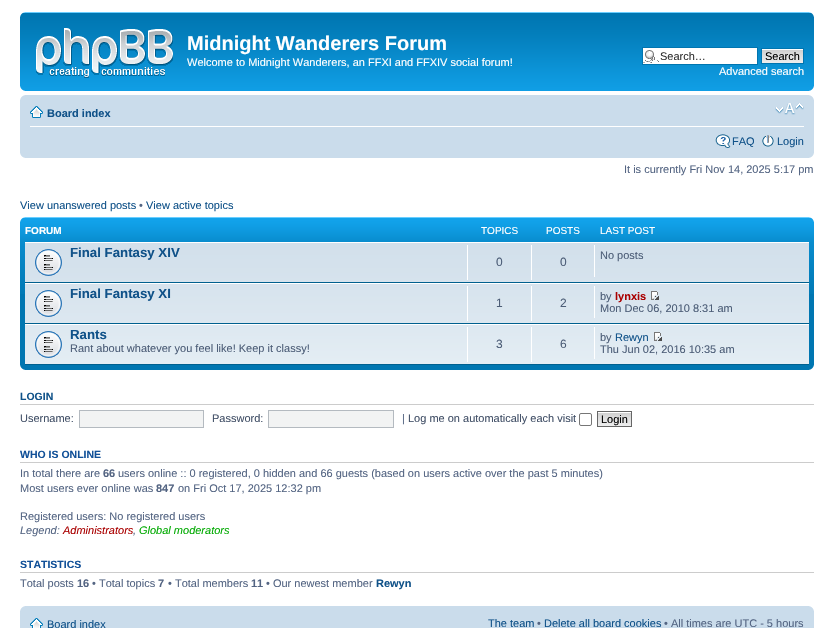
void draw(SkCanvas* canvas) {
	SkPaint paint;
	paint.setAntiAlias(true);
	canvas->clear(0xffffffff);
	canvas->drawImageRect(SkImages::DeferredFromEncodedData(SkData::MakeFromFileName("img1.png")), SkRect::MakeXYWH(20, 12, 794, 79), SkSamplingOptions());
	canvas->drawImageRect(SkImages::DeferredFromEncodedData(SkData::MakeFromFileName("img2.png")), SkRect::MakeXYWH(20, 12, 5, 5), SkSamplingOptions());
	canvas->drawImageRect(SkImages::DeferredFromEncodedData(SkData::MakeFromFileName("img3.png")), SkRect::MakeXYWH(809, 12, 5, 5), SkSamplingOptions());
	canvas->drawImageRect(SkImages::DeferredFromEncodedData(SkData::MakeFromFileName("img4.png")), SkRect::MakeXYWH(36, 28, 137, 50), SkSamplingOptions());
	SkFont f1(fontMgr->matchFamilyStyle("Liberation Sans", SkFontStyle::Bold()), 20);
	f1.setSubpixel(true);
	paint.setColor(0xffffffff);
	canvas->drawString("Midnight Wanderers Forum", 187, 50, f1, paint);
	SkFont f2(fontMgr->matchFamilyStyle("Liberation Sans", SkFontStyle::Normal()), 11);
	f2.setSubpixel(true);
	canvas->drawString("Welcome to Midnight Wanderers, an FFXI and FFXIV social forum!", 187, 66, f2, paint);
	canvas->drawRect(SkRect::MakeXYWH(643, 48, 114, 16), paint);
	canvas->drawImageRect(SkImages::DeferredFromEncodedData(SkData::MakeFromFileName("img5.png")), SkRect::MakeXYWH(643, 50, 16, 13), SkSamplingOptions());
	paint.setStroke(true);
	paint.setStrokeWidth(1);
	paint.setColor(0xff0075b0);
	canvas->drawRect(SkRect::MakeXYWH(642.5, 47.5, 115, 17), paint);
	paint.setStroke(false);
	paint.setColor(0xff333333);
	canvas->drawString("Search…", 660, 60, f2, paint);
	canvas->drawImageRect(SkImages::DeferredFromEncodedData(SkData::MakeFromFileName("img6.png")), SkRect::MakeXYWH(762, 49, 41, 14), SkSamplingOptions());
	paint.setStroke(true);
	paint.setColor(0xff0075b0);
	canvas->drawRect(SkRect::MakeXYWH(761.5, 48.5, 42, 15), paint);
	paint.setStroke(false);
	paint.setColor(0xff000000);
	canvas->drawString("Search", 765, 60, f2, paint);
	paint.setColor(0xffffffff);
	canvas->drawString("Advanced search", 719, 75, f2, paint);
	canvas->drawImageRect(SkImages::DeferredFromEncodedData(SkData::MakeFromFileName("img7.png")), SkRect::MakeXYWH(20, 86, 5, 5), SkSamplingOptions());
	canvas->drawImageRect(SkImages::DeferredFromEncodedData(SkData::MakeFromFileName("img8.png")), SkRect::MakeXYWH(809, 86, 5, 5), SkSamplingOptions());
	paint.setColor(0xffcadceb);
	canvas->drawRect(SkRect::MakeXYWH(20, 95, 794, 63), paint);
	canvas->drawImageRect(SkImages::DeferredFromEncodedData(SkData::MakeFromFileName("img9.png")), SkRect::MakeXYWH(20, 95, 5, 5), SkSamplingOptions());
	canvas->drawImageRect(SkImages::DeferredFromEncodedData(SkData::MakeFromFileName("img10.png")), SkRect::MakeXYWH(809, 95, 5, 5), SkSamplingOptions());
	paint.setColor(0xffffffff);
	canvas->drawRect(SkRect::MakeXYWH(30, 126, 774, 1), paint);
	canvas->drawImageRect(SkImages::DeferredFromEncodedData(SkData::MakeFromFileName("img11.png")), SkRect::MakeXYWH(30, 106, 13, 12), SkSamplingOptions());
	SkFont f3(fontMgr->matchFamilyStyle("Liberation Sans", SkFontStyle::Bold()), 11);
	f3.setSubpixel(true);
	paint.setColor(0xff105289);
	canvas->drawString("Board index", 47, 117, f3, paint);
	canvas->drawImageRect(SkImages::DeferredFromEncodedData(SkData::MakeFromFileName("img12.png")), SkRect::MakeXYWH(775, 103, 29, 12), SkSamplingOptions());
	canvas->drawImageRect(SkImages::DeferredFromEncodedData(SkData::MakeFromFileName("img13.png")), SkRect::MakeXYWH(715, 134, 16, 14), SkSamplingOptions());
	canvas->drawString("FAQ", 732, 145, f2, paint);
	canvas->drawImageRect(SkImages::DeferredFromEncodedData(SkData::MakeFromFileName("img14.png")), SkRect::MakeXYWH(762, 135, 12, 12), SkSamplingOptions());
	canvas->drawString("Login", 777, 145, f2, paint);
	canvas->drawImageRect(SkImages::DeferredFromEncodedData(SkData::MakeFromFileName("img15.png")), SkRect::MakeXYWH(20, 153, 5, 5), SkSamplingOptions());
	canvas->drawImageRect(SkImages::DeferredFromEncodedData(SkData::MakeFromFileName("img16.png")), SkRect::MakeXYWH(809, 153, 5, 5), SkSamplingOptions());
	paint.setColor(0xff536482);
	canvas->drawString("It is currently Fri Nov 14, 2025 5:17 pm", 624, 173, f2, paint);
	paint.setColor(0xff105289);
	canvas->drawString("View unanswered posts", 20, 209, f2, paint);
	paint.setColor(0xff536482);
	canvas->drawString("•", 139, 209, f2, paint);
	paint.setColor(0xff105289);
	canvas->drawString("View active topics", 146, 209, f2, paint);
	paint.setColor(0xff0076b1);
	canvas->drawRect(SkRect::MakeXYWH(20, 294, 794, 76), paint);
	canvas->drawImageRect(SkImages::DeferredFromEncodedData(SkData::MakeFromFileName("img17.png")), SkRect::MakeXYWH(20, 217, 794, 77), SkSamplingOptions());
	canvas->drawImageRect(SkImages::DeferredFromEncodedData(SkData::MakeFromFileName("img18.png")), SkRect::MakeXYWH(20, 217, 5, 5), SkSamplingOptions());
	canvas->drawImageRect(SkImages::DeferredFromEncodedData(SkData::MakeFromFileName("img19.png")), SkRect::MakeXYWH(809, 217, 5, 5), SkSamplingOptions());
	SkFont f4(fontMgr->matchFamilyStyle("Liberation Sans", SkFontStyle::Bold()), 10);
	f4.setSubpixel(true);
	paint.setColor(0xffffffff);
	canvas->drawString("FORUM", 25, 234, f4, paint);
	SkFont f5(fontMgr->matchFamilyStyle("Liberation Sans", SkFontStyle::Normal()), 10);
	f5.setSubpixel(true);
	canvas->drawString("TOPICS", 481, 234, f5, paint);
	canvas->drawString("POSTS", 546, 234, f5, paint);
	canvas->drawString("LAST POST", 600, 234, f5, paint);
	canvas->drawImageRect(SkImages::DeferredFromEncodedData(SkData::MakeFromFileName("img20.png")), SkRect::MakeXYWH(25, 243, 784, 121), SkSamplingOptions());
	canvas->drawRect(SkRect::MakeXYWH(25, 242, 784, 1), paint);
	paint.setColor(0xff00608f);
	canvas->drawRect(SkRect::MakeXYWH(25, 282, 784, 1), paint);
	canvas->drawImageRect(SkImages::DeferredFromEncodedData(SkData::MakeFromFileName("img21.png")), SkRect::MakeXYWH(35, 249, 27, 27), SkSamplingOptions());
	SkFont f6(fontMgr->matchFamilyStyle("Liberation Sans", SkFontStyle::Bold()), 13.25);
	f6.setSubpixel(true);
	paint.setColor(0xff105289);
	canvas->drawString("Final Fantasy XIV", 70, 257, f6, paint);
	paint.setColor(0xffffffff);
	canvas->drawRect(SkRect::MakeXYWH(467, 245, 1, 35), paint);
	SkFont f7(fontMgr->matchFamilyStyle("Liberation Sans", SkFontStyle::Normal()), 12);
	f7.setSubpixel(true);
	paint.setColor(0xff4c5d77);
	canvas->drawString("0", 496, 266, f7, paint);
	paint.setColor(0xffffffff);
	canvas->drawRect(SkRect::MakeXYWH(531, 245, 1, 35), paint);
	paint.setColor(0xff4c5d77);
	canvas->drawString("0", 560, 266, f7, paint);
	paint.setColor(0xffffffff);
	canvas->drawRect(SkRect::MakeXYWH(594, 245, 1, 32), paint);
	paint.setColor(0xff4c5d77);
	canvas->drawString("No posts", 600, 259, f2, paint);
	paint.setColor(0xffffffff);
	canvas->drawRect(SkRect::MakeXYWH(25, 283, 784, 1), paint);
	paint.setColor(0xff00608f);
	canvas->drawRect(SkRect::MakeXYWH(25, 323, 784, 1), paint);
	canvas->drawImageRect(SkImages::DeferredFromEncodedData(SkData::MakeFromFileName("img22.png")), SkRect::MakeXYWH(35, 290, 27, 27), SkSamplingOptions());
	paint.setColor(0xff105289);
	canvas->drawString("Final Fantasy XI", 70, 298, f6, paint);
	paint.setColor(0xffffffff);
	canvas->drawRect(SkRect::MakeXYWH(467, 286, 1, 35), paint);
	paint.setColor(0xff4c5d77);
	canvas->drawString("1", 496, 307, f7, paint);
	paint.setColor(0xffffffff);
	canvas->drawRect(SkRect::MakeXYWH(531, 286, 1, 35), paint);
	paint.setColor(0xff4c5d77);
	canvas->drawString("2", 560, 307, f7, paint);
	paint.setColor(0xffffffff);
	canvas->drawRect(SkRect::MakeXYWH(594, 286, 1, 32), paint);
	paint.setColor(0xff4c5d77);
	canvas->drawString("by", 600, 300, f2, paint);
	paint.setColor(0xffaa0000);
	canvas->drawString("lynxis", 615, 300, f3, paint);
	canvas->drawImageRect(SkImages::DeferredFromEncodedData(SkData::MakeFromFileName("img23.png")), SkRect::MakeXYWH(651, 291, 8, 9), SkSamplingOptions());
	paint.setColor(0xff4c5d77);
	canvas->drawString("Mon Dec 06, 2010 8:31 am", 600, 312, f2, paint);
	paint.setColor(0xffffffff);
	canvas->drawRect(SkRect::MakeXYWH(25, 324, 784, 1), paint);
	paint.setColor(0xff00608f);
	canvas->drawRect(SkRect::MakeXYWH(25, 364, 784, 1), paint);
	canvas->drawImageRect(SkImages::DeferredFromEncodedData(SkData::MakeFromFileName("img24.png")), SkRect::MakeXYWH(35, 331, 27, 27), SkSamplingOptions());
	paint.setColor(0xff105289);
	canvas->drawString("Rants", 70, 339, f6, paint);
	paint.setColor(0xff4c5d77);
	canvas->drawString("Rant about whatever you feel like! Keep it classy!", 70, 352, f2, paint);
	paint.setColor(0xffffffff);
	canvas->drawRect(SkRect::MakeXYWH(467, 327, 1, 35), paint);
	paint.setColor(0xff4c5d77);
	canvas->drawString("3", 496, 348, f7, paint);
	paint.setColor(0xffffffff);
	canvas->drawRect(SkRect::MakeXYWH(531, 327, 1, 35), paint);
	paint.setColor(0xff4c5d77);
	canvas->drawString("6", 560, 348, f7, paint);
	paint.setColor(0xffffffff);
	canvas->drawRect(SkRect::MakeXYWH(594, 327, 1, 32), paint);
	paint.setColor(0xff4c5d77);
	canvas->drawString("by", 600, 341, f2, paint);
	paint.setColor(0xff105289);
	canvas->drawString("Rewyn", 615, 341, f2, paint);
	canvas->drawImageRect(SkImages::DeferredFromEncodedData(SkData::MakeFromFileName("img25.png")), SkRect::MakeXYWH(654, 332, 8, 9), SkSamplingOptions());
	paint.setColor(0xff4c5d77);
	canvas->drawString("Thu Jun 02, 2016 10:35 am", 600, 353, f2, paint);
	canvas->drawImageRect(SkImages::DeferredFromEncodedData(SkData::MakeFromFileName("img26.png")), SkRect::MakeXYWH(20, 365, 5, 5), SkSamplingOptions());
	canvas->drawImageRect(SkImages::DeferredFromEncodedData(SkData::MakeFromFileName("img27.png")), SkRect::MakeXYWH(809, 365, 5, 5), SkSamplingOptions());
	paint.setColor(0xffcccccc);
	canvas->drawRect(SkRect::MakeXYWH(20, 404, 794, 1), paint);
	SkFont f8(fontMgr->matchFamilyStyle("Liberation Sans", SkFontStyle::Bold()), 10.5);
	f8.setSubpixel(true);
	paint.setColor(0xff105289);
	canvas->drawString("LOGIN", 20, 400, f8, paint);
	paint.setColor(0xff425067);
	canvas->drawString("Username:", 20, 422, f2, paint);
	paint.setColor(0xfff2f3f3);
	canvas->drawRect(SkRect::MakeXYWH(79.5, 410.5, 124, 17), paint);
	paint.setStroke(true);
	paint.setColor(0xffb4bac0);
	canvas->drawRect(SkRect::MakeXYWH(79.5, 410.5, 124, 17), paint);
	paint.setStroke(false);
	paint.setColor(0xff425067);
	canvas->drawString("Password:", 212, 422, f2, paint);
	paint.setColor(0xfff2f3f3);
	canvas->drawRect(SkRect::MakeXYWH(268.5, 410.5, 125, 17), paint);
	paint.setStroke(true);
	paint.setColor(0xffb4bac0);
	canvas->drawRect(SkRect::MakeXYWH(268.5, 410.5, 125, 17), paint);
	paint.setStroke(false);
	paint.setColor(0xff536482);
	canvas->drawString("|", 402, 422, f2, paint);
	paint.setColor(0xff425067);
	canvas->drawString("Log me on automatically each visit", 408, 422, f2, paint);
	paint.setStroke(true);
	paint.setColor(0xff767676);
	canvas->drawRoundRect(SkRect::MakeXYWH(579.5, 413.5, 12, 12), 1.5, 1.5, paint);
	canvas->drawImageRect(SkImages::DeferredFromEncodedData(SkData::MakeFromFileName("img28.png")), SkRect::MakeXYWH(598, 412, 33, 14), SkSamplingOptions());
	paint.setColor(0xff666666);
	canvas->drawRect(SkRect::MakeXYWH(597.5, 411.5, 34, 15), paint);
	paint.setStroke(false);
	paint.setColor(0xff000000);
	canvas->drawString("Login", 601, 423, f2, paint);
	paint.setColor(0xffcccccc);
	canvas->drawRect(SkRect::MakeXYWH(20, 462, 794, 1), paint);
	paint.setColor(0xff115098);
	canvas->drawString("WHO IS ONLINE", 20, 458, f8, paint);
	paint.setColor(0xff536482);
	canvas->drawString("In total there are", 20, 477, f2, paint);
	canvas->drawString("66", 103, 477, f3, paint);
	canvas->drawString("users online :: 0 registered, 0 hidden and 66 guests (based on users active over the past 5 minutes)", 118, 477, f2, paint);
	canvas->drawString("Most users ever online was", 20, 492, f2, paint);
	canvas->drawString("847", 156, 492, f3, paint);
	canvas->drawString("on Fri Oct 17, 2025 12:32 pm", 178, 492, f2, paint);
	canvas->drawString("Registered users: No registered users", 20, 520, f2, paint);
	SkFont f9(fontMgr->matchFamilyStyle("Liberation Sans", SkFontStyle::Italic()), 11);
	f9.setSubpixel(true);
	canvas->drawString("Legend:", 20, 534, f9, paint);
	paint.setColor(0xffaa0000);
	canvas->drawString("Administrators", 63, 534, f9, paint);
	paint.setColor(0xff536482);
	canvas->drawString(",", 133, 534, f9, paint);
	paint.setColor(0xff00aa00);
	canvas->drawString("Global moderators", 139, 534, f9, paint);
	paint.setColor(0xffcccccc);
	canvas->drawRect(SkRect::MakeXYWH(20, 572, 794, 1), paint);
	paint.setColor(0xff115098);
	canvas->drawString("STATISTICS", 20, 568, f8, paint);
	paint.setColor(0xff536482);
	canvas->drawString("Total posts", 20, 587, f2, paint);
	canvas->drawString("16", 77, 587, f3, paint);
	canvas->drawString("• Total topics", 92, 587, f2, paint);
	canvas->drawString("7", 158, 587, f3, paint);
	canvas->drawString("• Total members", 168, 587, f2, paint);
	canvas->drawString("11", 251, 587, f3, paint);
	canvas->drawString("• Our newest member", 266, 587, f2, paint);
	paint.setColor(0xff105289);
	canvas->drawString("Rewyn", 376, 587, f3, paint);
	paint.setColor(0xffcadceb);
	canvas->drawRect(SkRect::MakeXYWH(20, 606, 794, 22), paint);
	canvas->drawImageRect(SkImages::DeferredFromEncodedData(SkData::MakeFromFileName("img9.png")), SkRect::MakeXYWH(20, 606, 5, 5), SkSamplingOptions());
	canvas->drawImageRect(SkImages::DeferredFromEncodedData(SkData::MakeFromFileName("img10.png")), SkRect::MakeXYWH(809, 606, 5, 5), SkSamplingOptions());
	canvas->drawImageRect(SkImages::DeferredFromEncodedData(SkData::MakeFromFileName("img29.png")), SkRect::MakeXYWH(30, 618, 13, 10), SkSamplingOptions());
	paint.setColor(0xff105289);
	canvas->drawString("Board index", 47, 628, f2, paint);
	canvas->drawString("The team", 488, 627, f2, paint);
	paint.setColor(0xff536482);
	canvas->drawString("•", 537, 627, f2, paint);
	paint.setColor(0xff105289);
	canvas->drawString("Delete all board cookies", 544, 627, f2, paint);
	paint.setColor(0xff536482);
	canvas->drawString("• All times are UTC - 5 hours", 664, 627, f2, paint);
}
